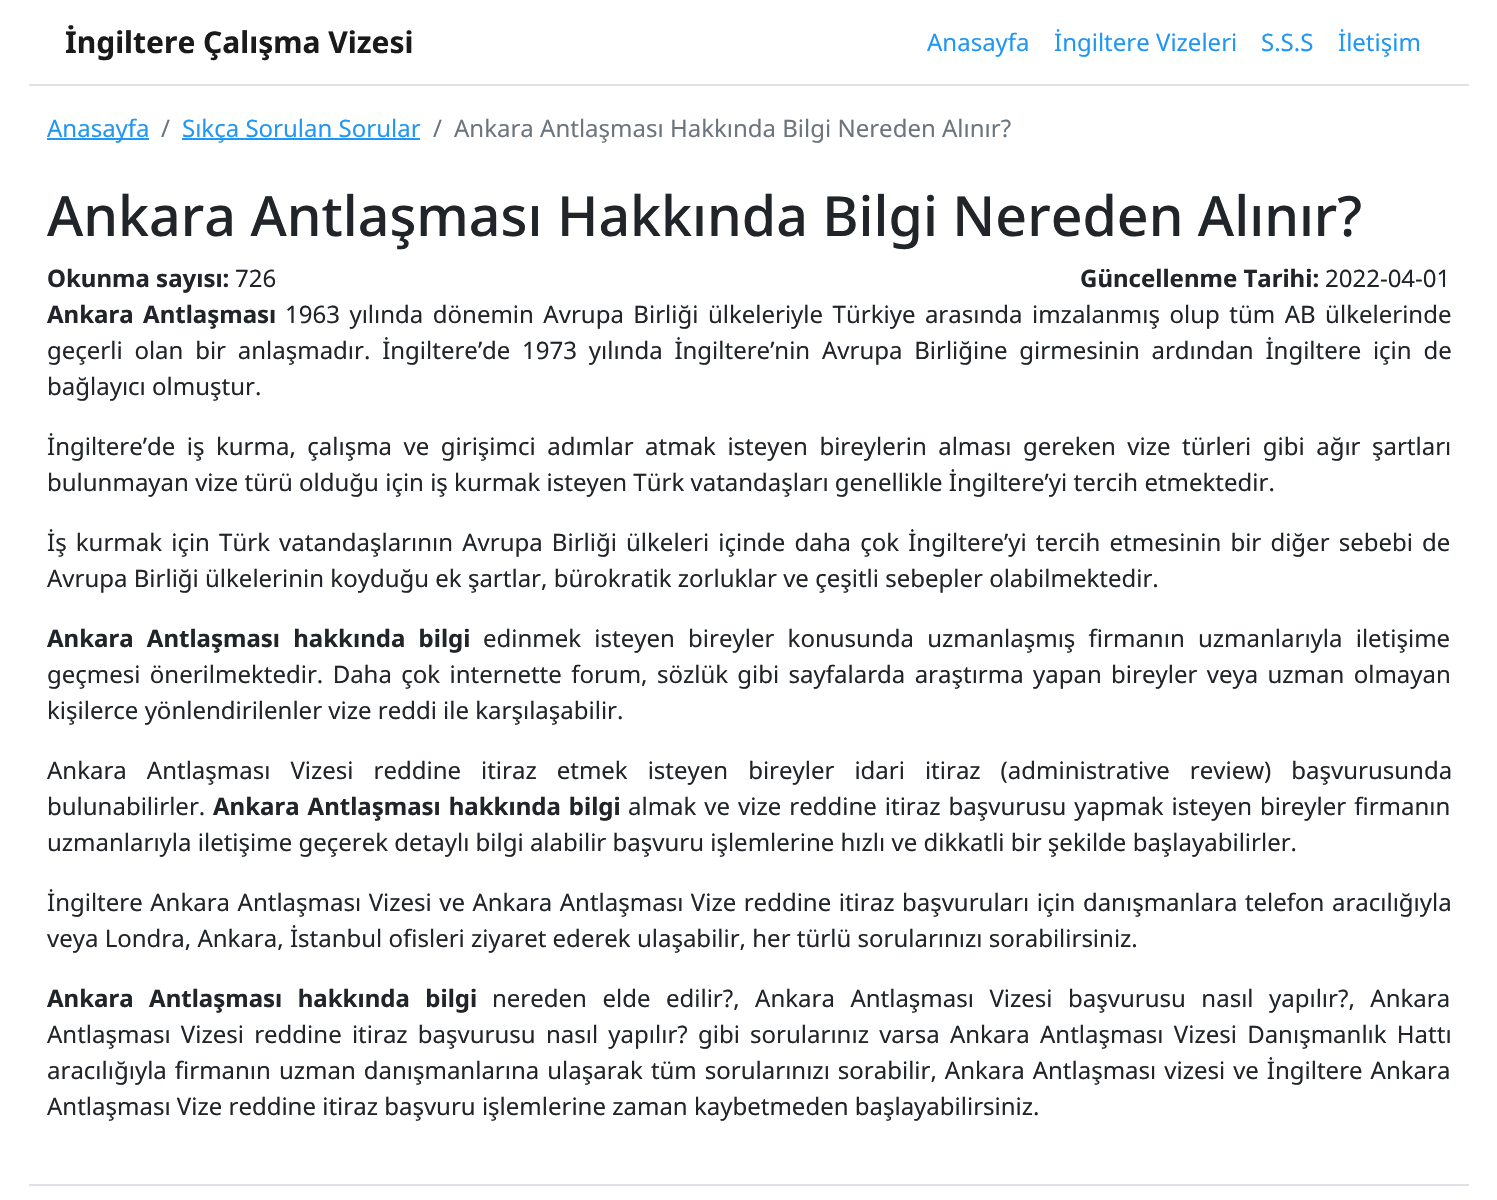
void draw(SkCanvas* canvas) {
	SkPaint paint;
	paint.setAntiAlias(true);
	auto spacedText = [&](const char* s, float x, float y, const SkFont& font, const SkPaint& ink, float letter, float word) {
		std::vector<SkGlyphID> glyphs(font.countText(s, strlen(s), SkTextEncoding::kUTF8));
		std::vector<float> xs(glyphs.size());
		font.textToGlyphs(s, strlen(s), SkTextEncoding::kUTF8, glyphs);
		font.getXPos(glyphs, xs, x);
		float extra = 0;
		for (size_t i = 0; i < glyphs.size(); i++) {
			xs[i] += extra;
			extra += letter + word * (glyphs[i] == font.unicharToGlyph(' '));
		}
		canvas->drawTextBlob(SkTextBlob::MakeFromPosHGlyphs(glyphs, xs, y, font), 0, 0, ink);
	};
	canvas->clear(0xffffffff);
	paint.setColor(0xffdee2e6);
	canvas->drawRect(SkRect::MakeXYWH(29, 84, 1440, 2), paint);
	SkFont f1(fontMgr->matchFamilyStyle("Noto Sans", SkFontStyle::Bold()), 30);
	f1.setSubpixel(true);
	paint.setColor(0xff1a1a1a);
	canvas->drawString("İngiltere Çalışma Vizesi", 65, 53, f1, paint);
	SkFont f2(fontMgr->matchFamilyStyle("Noto Sans", SkFontStyle::Normal()), 24);
	f2.setSubpixel(true);
	paint.setColor(0xff2097f3);
	canvas->drawString("Anasayfa", 927, 51, f2, paint);
	canvas->drawString("İngiltere Vizeleri", 1054, 51, f2, paint);
	canvas->drawString("S.S.S", 1261, 51, f2, paint);
	canvas->drawString("İletişim", 1338, 51, f2, paint);
	canvas->drawRect(SkRect::MakeXYWH(47, 138, 102, 2), paint);
	canvas->drawString("Anasayfa", 47, 137, f2, paint);
	paint.setColor(0xff6c757d);
	canvas->drawString("/", 161, 137, f2, paint);
	paint.setColor(0xff2097f3);
	canvas->drawRect(SkRect::MakeXYWH(182, 138, 238, 2), paint);
	canvas->drawString("Sıkça Sorulan Sorular", 182, 137, f2, paint);
	paint.setColor(0xff6c757d);
	canvas->drawString("/", 433, 137, f2, paint);
	canvas->drawString("Ankara Antlaşması Hakkında Bilgi Nereden Alınır?", 454, 137, f2, paint);
	SkFont f3(fontMgr->matchFamilyStyle("Noto Sans", SkFontStyle(500, SkFontStyle::kNormal_Width, SkFontStyle::kUpright_Slant)), 55.45);
	f3.setSubpixel(true);
	paint.setColor(0xff212529);
	canvas->drawString("Ankara Antlaşması Hakkında Bilgi Nereden Alınır?", 47, 236, f3, paint);
	SkFont f4(fontMgr->matchFamilyStyle("Noto Sans", SkFontStyle::Bold()), 24);
	f4.setSubpixel(true);
	canvas->drawString("Okunma sayısı:", 47, 287, f4, paint);
	canvas->drawString("726", 235, 287, f2, paint);
	canvas->drawString("Güncellenme Tarihi:", 1080, 287, f4, paint);
	canvas->drawString("2022-04-01", 1325, 287, f2, paint);
	spacedText("Ankara Antlaşması", 47, 323, f4, paint, 0, 3.25);
	spacedText("1963 yılında dönemin Avrupa Birliği ülkeleriyle Türkiye arasında imzalanmış olup tüm AB ülkelerinde", 285, 323, f2, paint, 0, 3.25);
	spacedText("geçerli olan bir anlaşmadır. İngiltere’de 1973 yılında İngiltere’nin Avrupa Birliğine girmesinin ardından İngiltere için de", 47, 359, f2, paint, 0, 5.5);
	canvas->drawString("bağlayıcı olmuştur.", 47, 395, f2, paint);
	spacedText("İngiltere’de iş kurma, çalışma ve girişimci adımlar atmak isteyen bireylerin alması gereken vize türleri gibi ağır şartları", 47, 455, f2, paint, 0, 5.25);
	canvas->drawString("bulunmayan vize türü olduğu için iş kurmak isteyen Türk vatandaşları genellikle İngiltere’yi tercih etmektedir.", 47, 491, f2, paint);
	spacedText("İş kurmak için Türk vatandaşlarının Avrupa Birliği ülkeleri içinde daha çok İngiltere’yi tercih etmesinin bir diğer sebebi de", 47, 551, f2, paint, 0, 2.9);
	canvas->drawString("Avrupa Birliği ülkelerinin koyduğu ek şartlar, bürokratik zorluklar ve çeşitli sebepler olabilmektedir.", 47, 587, f2, paint);
	spacedText("Ankara Antlaşması hakkında bilgi", 47, 647, f4, paint, 0, 7);
	spacedText("edinmek isteyen bireyler konusunda uzmanlaşmış firmanın uzmanlarıyla iletişime", 483, 647, f2, paint, 0, 7);
	spacedText("geçmesi önerilmektedir. Daha çok internette forum, sözlük gibi sayfalarda araştırma yapan bireyler veya uzman olmayan", 47, 683, f2, paint, 0, 3.1);
	canvas->drawString("kişilerce yönlendirilenler vize reddi ile karşılaşabilir.", 47, 719, f2, paint);
	spacedText("Ankara Antlaşması Vizesi reddine itiraz etmek isteyen bireyler idari itiraz (administrative review) başvurusunda", 47, 779, f2, paint, 0, 13.75);
	canvas->drawString("bulunabilirler.", 47, 815, f2, paint);
	spacedText("Ankara Antlaşması hakkında bilgi", 213, 815, f4, paint, 0, 1.75);
	spacedText("almak ve vize reddine itiraz başvurusu yapmak isteyen bireyler firmanın", 628, 815, f2, paint, 0, 1.75);
	canvas->drawString("uzmanlarıyla iletişime geçerek detaylı bilgi alabilir başvuru işlemlerine hızlı ve dikkatli bir şekilde başlayabilirler.", 47, 851, f2, paint);
	spacedText("İngiltere Ankara Antlaşması Vizesi ve Ankara Antlaşması Vize reddine itiraz başvuruları için danışmanlara telefon aracılığıyla", 47, 911, f2, paint, 0, 1.25);
	canvas->drawString("veya Londra, Ankara, İstanbul ofisleri ziyaret ederek ulaşabilir, her türlü sorularınızı sorabilirsiniz.", 47, 947, f2, paint);
	spacedText("Ankara Antlaşması hakkında bilgi", 47, 1007, f4, paint, 0, 9.25);
	spacedText("nereden elde edilir?, Ankara Antlaşması Vizesi başvurusu nasıl yapılır?, Ankara", 492, 1007, f2, paint, 0, 9.25);
	spacedText("Antlaşması Vizesi reddine itiraz başvurusu nasıl yapılır? gibi sorularınız varsa Ankara Antlaşması Vizesi Danışmanlık Hattı", 47, 1043, f2, paint, 0, 4);
	spacedText("aracılığıyla firmanın uzman danışmanlarına ulaşarak tüm sorularınızı sorabilir, Ankara Antlaşması vizesi ve İngiltere Ankara", 47, 1079, f2, paint, 0, 1.75);
	canvas->drawString("Antlaşması Vize reddine itiraz başvuru işlemlerine zaman kaybetmeden başlayabilirsiniz.", 47, 1115, f2, paint);
	paint.setColor(0xffdee2e6);
	canvas->drawRect(SkRect::MakeXYWH(29, 1184, 1440, 2), paint);
}
